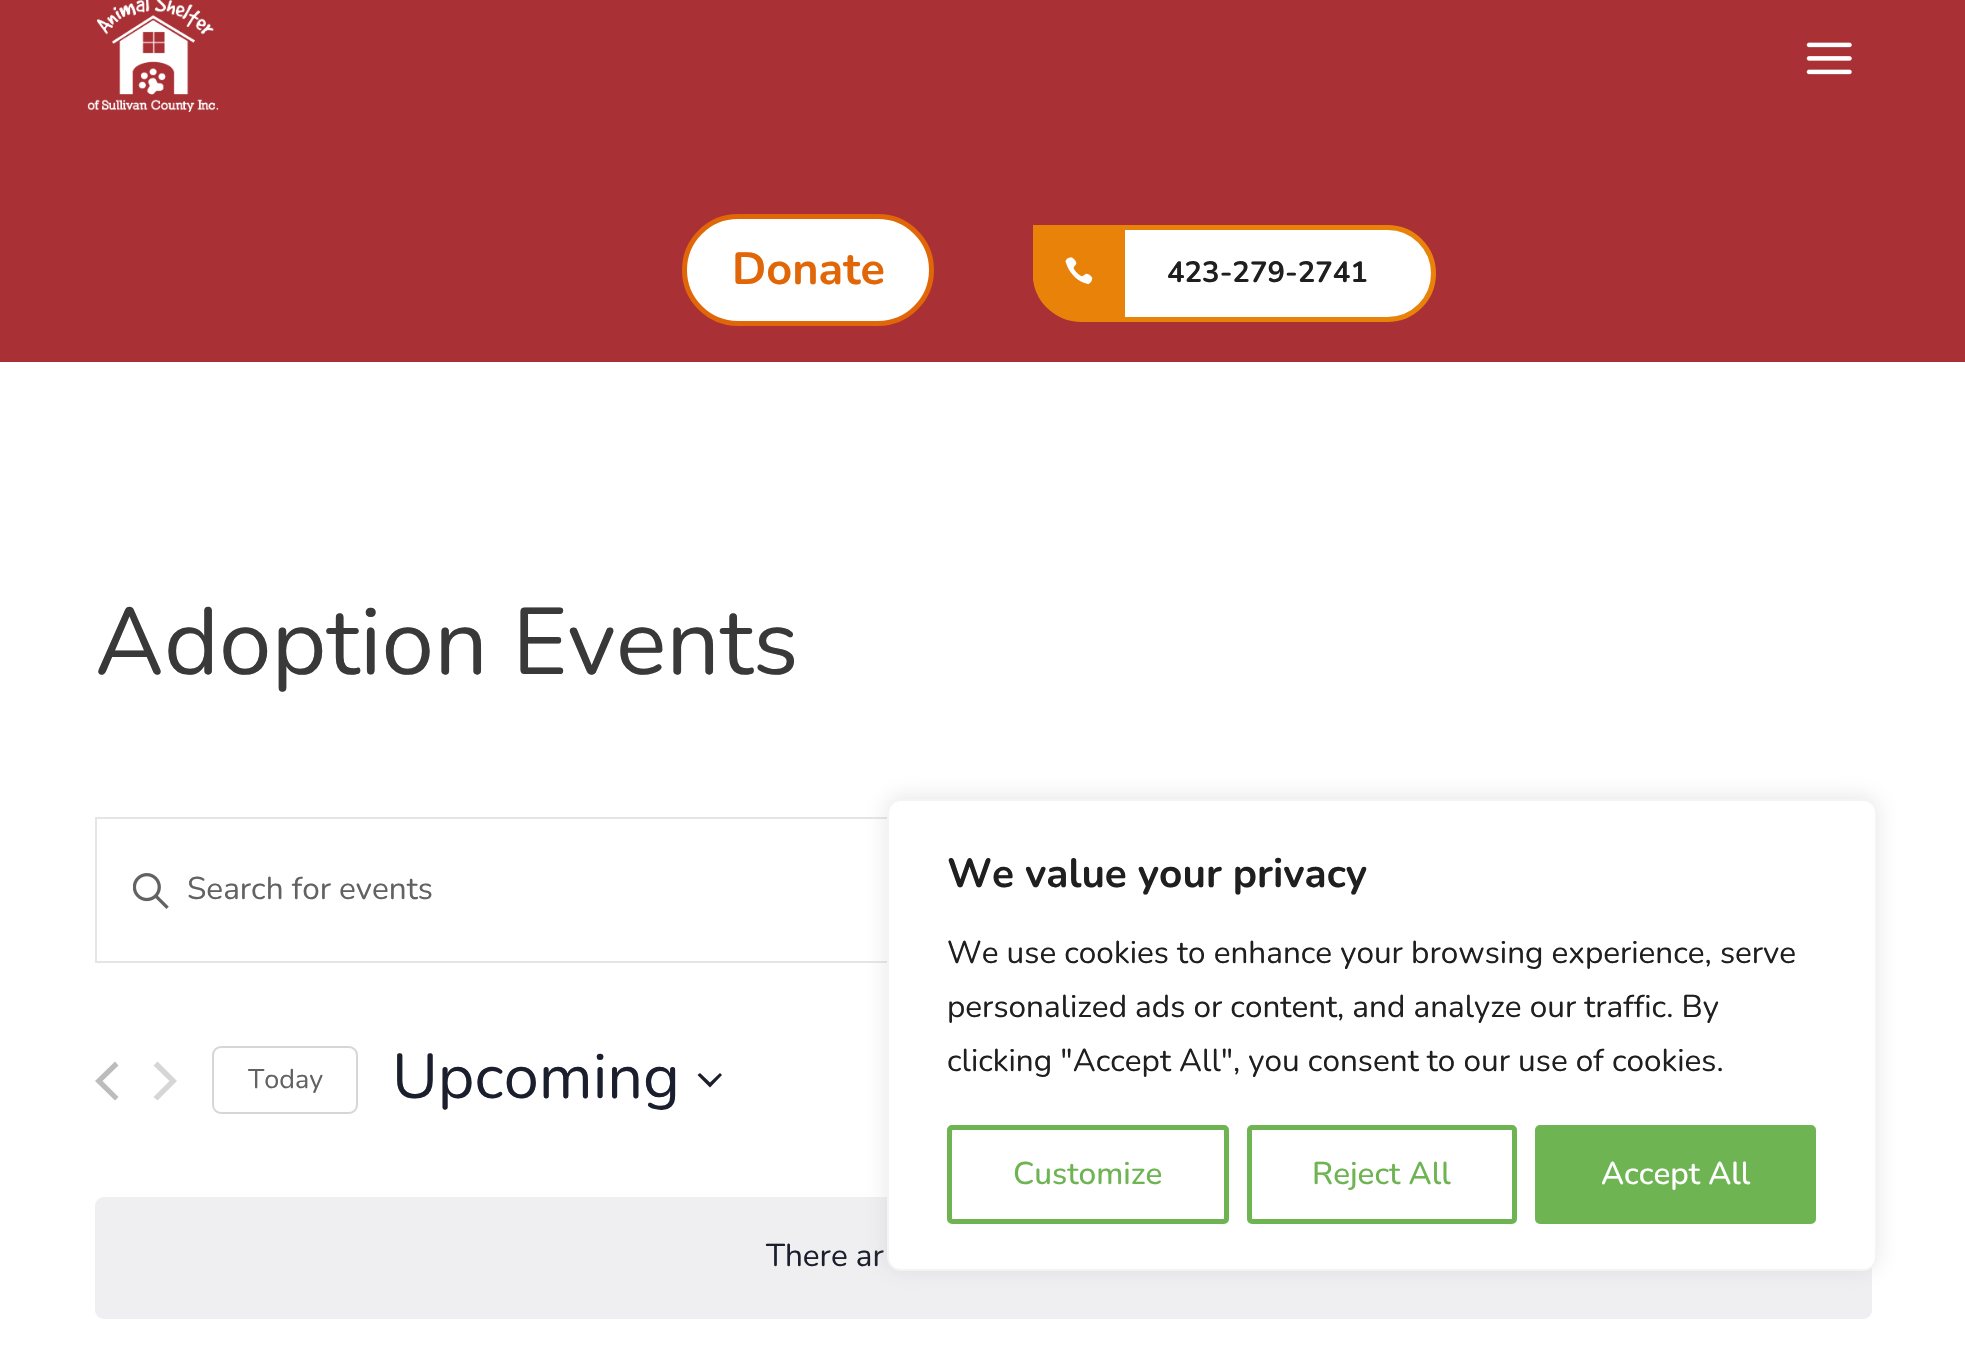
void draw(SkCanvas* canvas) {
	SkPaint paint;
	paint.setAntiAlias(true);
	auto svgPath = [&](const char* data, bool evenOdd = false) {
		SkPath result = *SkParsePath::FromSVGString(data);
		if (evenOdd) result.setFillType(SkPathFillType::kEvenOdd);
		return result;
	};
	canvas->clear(0xffffffff);
	paint.setColor(0xffa93136);
	canvas->drawRect(SkRect::MakeXYWH(0, 0, 1965, 362), paint);
	canvas->drawImageRect(SkImages::DeferredFromEncodedData(SkData::MakeFromFileName("img1.png")), SkRect::MakeXYWH(87, 0, 132, 112), SkSamplingOptions());
	canvas->drawImageRect(SkImages::DeferredFromEncodedData(SkData::MakeFromFileName("img2.png")), SkRect::MakeXYWH(1806, 42, 46, 33), SkSamplingOptions());
	paint.setColor(0xffffffff);
	canvas->drawRoundRect(SkRect::MakeXYWH(684.5, 216.5, 247, 107), 53.5, 53.5, paint);
	paint.setStroke(true);
	paint.setStrokeWidth(5);
	paint.setColor(0xffe16608);
	canvas->drawRoundRect(SkRect::MakeXYWH(684.5, 216.5, 247, 107), 53.5, 53.5, paint);
	SkFont f1(fontMgr->matchFamilyStyle("Nunito", SkFontStyle::Bold()), 45);
	f1.setSubpixel(true);
	paint.setStroke(false);
	canvas->drawString("Donate", 732, 284, f1, paint);
	paint.setColor(0xffffffff);
	canvas->drawPath(svgPath("M1035.5 227.5H1387.5C1413 227.5 1433.5 248 1433.5 273.5C1433.5 299 1413 319.5 1387.5 319.5H1081.5C1056 319.5 1035.5 299 1035.5 273.5Z"), paint);
	paint.setStroke(true);
	paint.setColor(0xffe98208);
	canvas->drawPath(svgPath("M1035.5 227.5H1387.5C1413 227.5 1433.5 248 1433.5 273.5C1433.5 299 1413 319.5 1387.5 319.5H1081.5C1056 319.5 1035.5 299 1035.5 273.5Z"), paint);
	paint.setStroke(false);
	canvas->drawPath(svgPath("M1033 225H1125V320H1078C1053 320 1033 300 1033 275Z"), paint);
	canvas->drawImageRect(SkImages::DeferredFromEncodedData(SkData::MakeFromFileName("img3.png")), SkRect::MakeXYWH(1065, 257, 28, 28), SkSamplingOptions());
	SkFont f2(fontMgr->matchFamilyStyle("Nunito", SkFontStyle::Bold()), 29.25);
	f2.setSubpixel(true);
	paint.setColor(0xff1f1f1f);
	canvas->drawString("423-279-2741", 1167, 282, f2, paint);
	SkFont f3(fontMgr->matchFamilyStyle("Nunito", SkFontStyle::Normal()), 94.5);
	f3.setSubpixel(true);
	paint.setColor(0xff393939);
	canvas->drawString("Adoption Events", 95, 674, f3, paint);
	paint.setStroke(true);
	paint.setStrokeWidth(2);
	paint.setColor(0xffe5e5e5);
	canvas->drawRect(SkRect::MakeXYWH(96, 818, 1775, 144), paint);
	canvas->drawImageRect(SkImages::DeferredFromEncodedData(SkData::MakeFromFileName("img4.png")), SkRect::MakeXYWH(133, 873, 36, 36), SkSamplingOptions());
	SkFont f4(fontMgr->matchFamilyStyle("Nunito", SkFontStyle::Normal()), 31.5);
	f4.setSubpixel(true);
	paint.setStroke(false);
	paint.setColor(0xff626262);
	canvas->drawString("Search for events", 187, 899, f4, paint);
	paint.setColor(0xffbcbcbc);
	canvas->drawPath(svgPath("M118.5 1097L115 1100.5L95 1081L115 1061.5L118.5 1065.5L102.5 1081Z"), paint);
	paint.setColor(0xffd6d6d6);
	canvas->drawPath(svgPath("M153.5 1065.5L157.5 1061.5L177 1081L157.5 1100.5L153.5 1097L169.5 1081Z"), paint);
	paint.setStroke(true);
	canvas->drawRoundRect(SkRect::MakeXYWH(213, 1047, 144, 66), 8, 8, paint);
	SkFont f5(fontMgr->matchFamilyStyle("Nunito", SkFontStyle::Normal()), 27);
	f5.setSubpixel(true);
	paint.setStroke(false);
	paint.setColor(0xff626262);
	canvas->drawString("Today", 248, 1088, f5, paint);
	SkFont f6(fontMgr->matchFamilyStyle("Nunito", SkFontStyle::Normal()), 63);
	f6.setSubpixel(true);
	paint.setColor(0xff1b1f2d);
	canvas->drawString("Upcoming", 392, 1098, f6, paint);
	canvas->drawPath(svgPath("M700 1073L710 1082.5L720 1073L722 1075L710 1087.5L697.5 1075Z", true), paint);
	paint.setColor(0xffefeff1);
	canvas->drawRoundRect(SkRect::MakeXYWH(95, 1197, 1777, 122), 9, 9, paint);
	paint.setColor(0xff1b1f2d);
	canvas->drawString("There ar", 766, 1266, f4, paint);
	paint.setColor(0x4dacabab);
	paint.setMaskFilter(SkMaskFilter::MakeBlur(kNormal_SkBlurStyle, 11));
	canvas->drawRoundRect(SkRect::MakeXYWH(887, 797, 990, 472), 14, 14, paint);
	paint.setMaskFilter(nullptr);
	paint.setColor(0xffffffff);
	canvas->drawRoundRect(SkRect::MakeXYWH(888, 800, 988, 470), 13, 13, paint);
	paint.setStroke(true);
	paint.setColor(0xfff4f4f4);
	canvas->drawRoundRect(SkRect::MakeXYWH(888, 800, 988, 470), 13, 13, paint);
	SkFont f7(fontMgr->matchFamilyStyle("Nunito", SkFontStyle::Bold()), 40.5);
	f7.setSubpixel(true);
	paint.setStroke(false);
	paint.setColor(0xff1f1f1f);
	canvas->drawString("We value your privacy", 947, 887, f7, paint);
	canvas->drawString("We use cookies to enhance your browsing experience, serve", 947, 963, f4, paint);
	canvas->drawString("personalized ads or content, and analyze our traffic. By", 947, 1017, f4, paint);
	canvas->drawString("clicking \"Accept All\", you consent to our use of cookies.", 947, 1071, f4, paint);
	paint.setStroke(true);
	paint.setStrokeWidth(5);
	paint.setColor(0xff6fb453);
	canvas->drawRoundRect(SkRect::MakeXYWH(949.5, 1127.5, 277, 94), 2.5, 2.5, paint);
	SkFont f8(fontMgr->matchFamilyStyle("Nunito", SkFontStyle(500, SkFontStyle::kNormal_Width, SkFontStyle::kUpright_Slant)), 31.5);
	f8.setSubpixel(true);
	paint.setStroke(false);
	canvas->drawString("Customize", 1013, 1184, f8, paint);
	paint.setStroke(true);
	canvas->drawRoundRect(SkRect::MakeXYWH(1249.5, 1127.5, 265, 94), 2.5, 2.5, paint);
	paint.setStroke(false);
	canvas->drawString("Reject All", 1312, 1184, f8, paint);
	canvas->drawRoundRect(SkRect::MakeXYWH(1537.5, 1127.5, 276, 94), 2.5, 2.5, paint);
	paint.setStroke(true);
	canvas->drawRoundRect(SkRect::MakeXYWH(1537.5, 1127.5, 276, 94), 2.5, 2.5, paint);
	paint.setStroke(false);
	paint.setColor(0xffffffff);
	canvas->drawString("Accept All", 1601, 1184, f8, paint);
}
